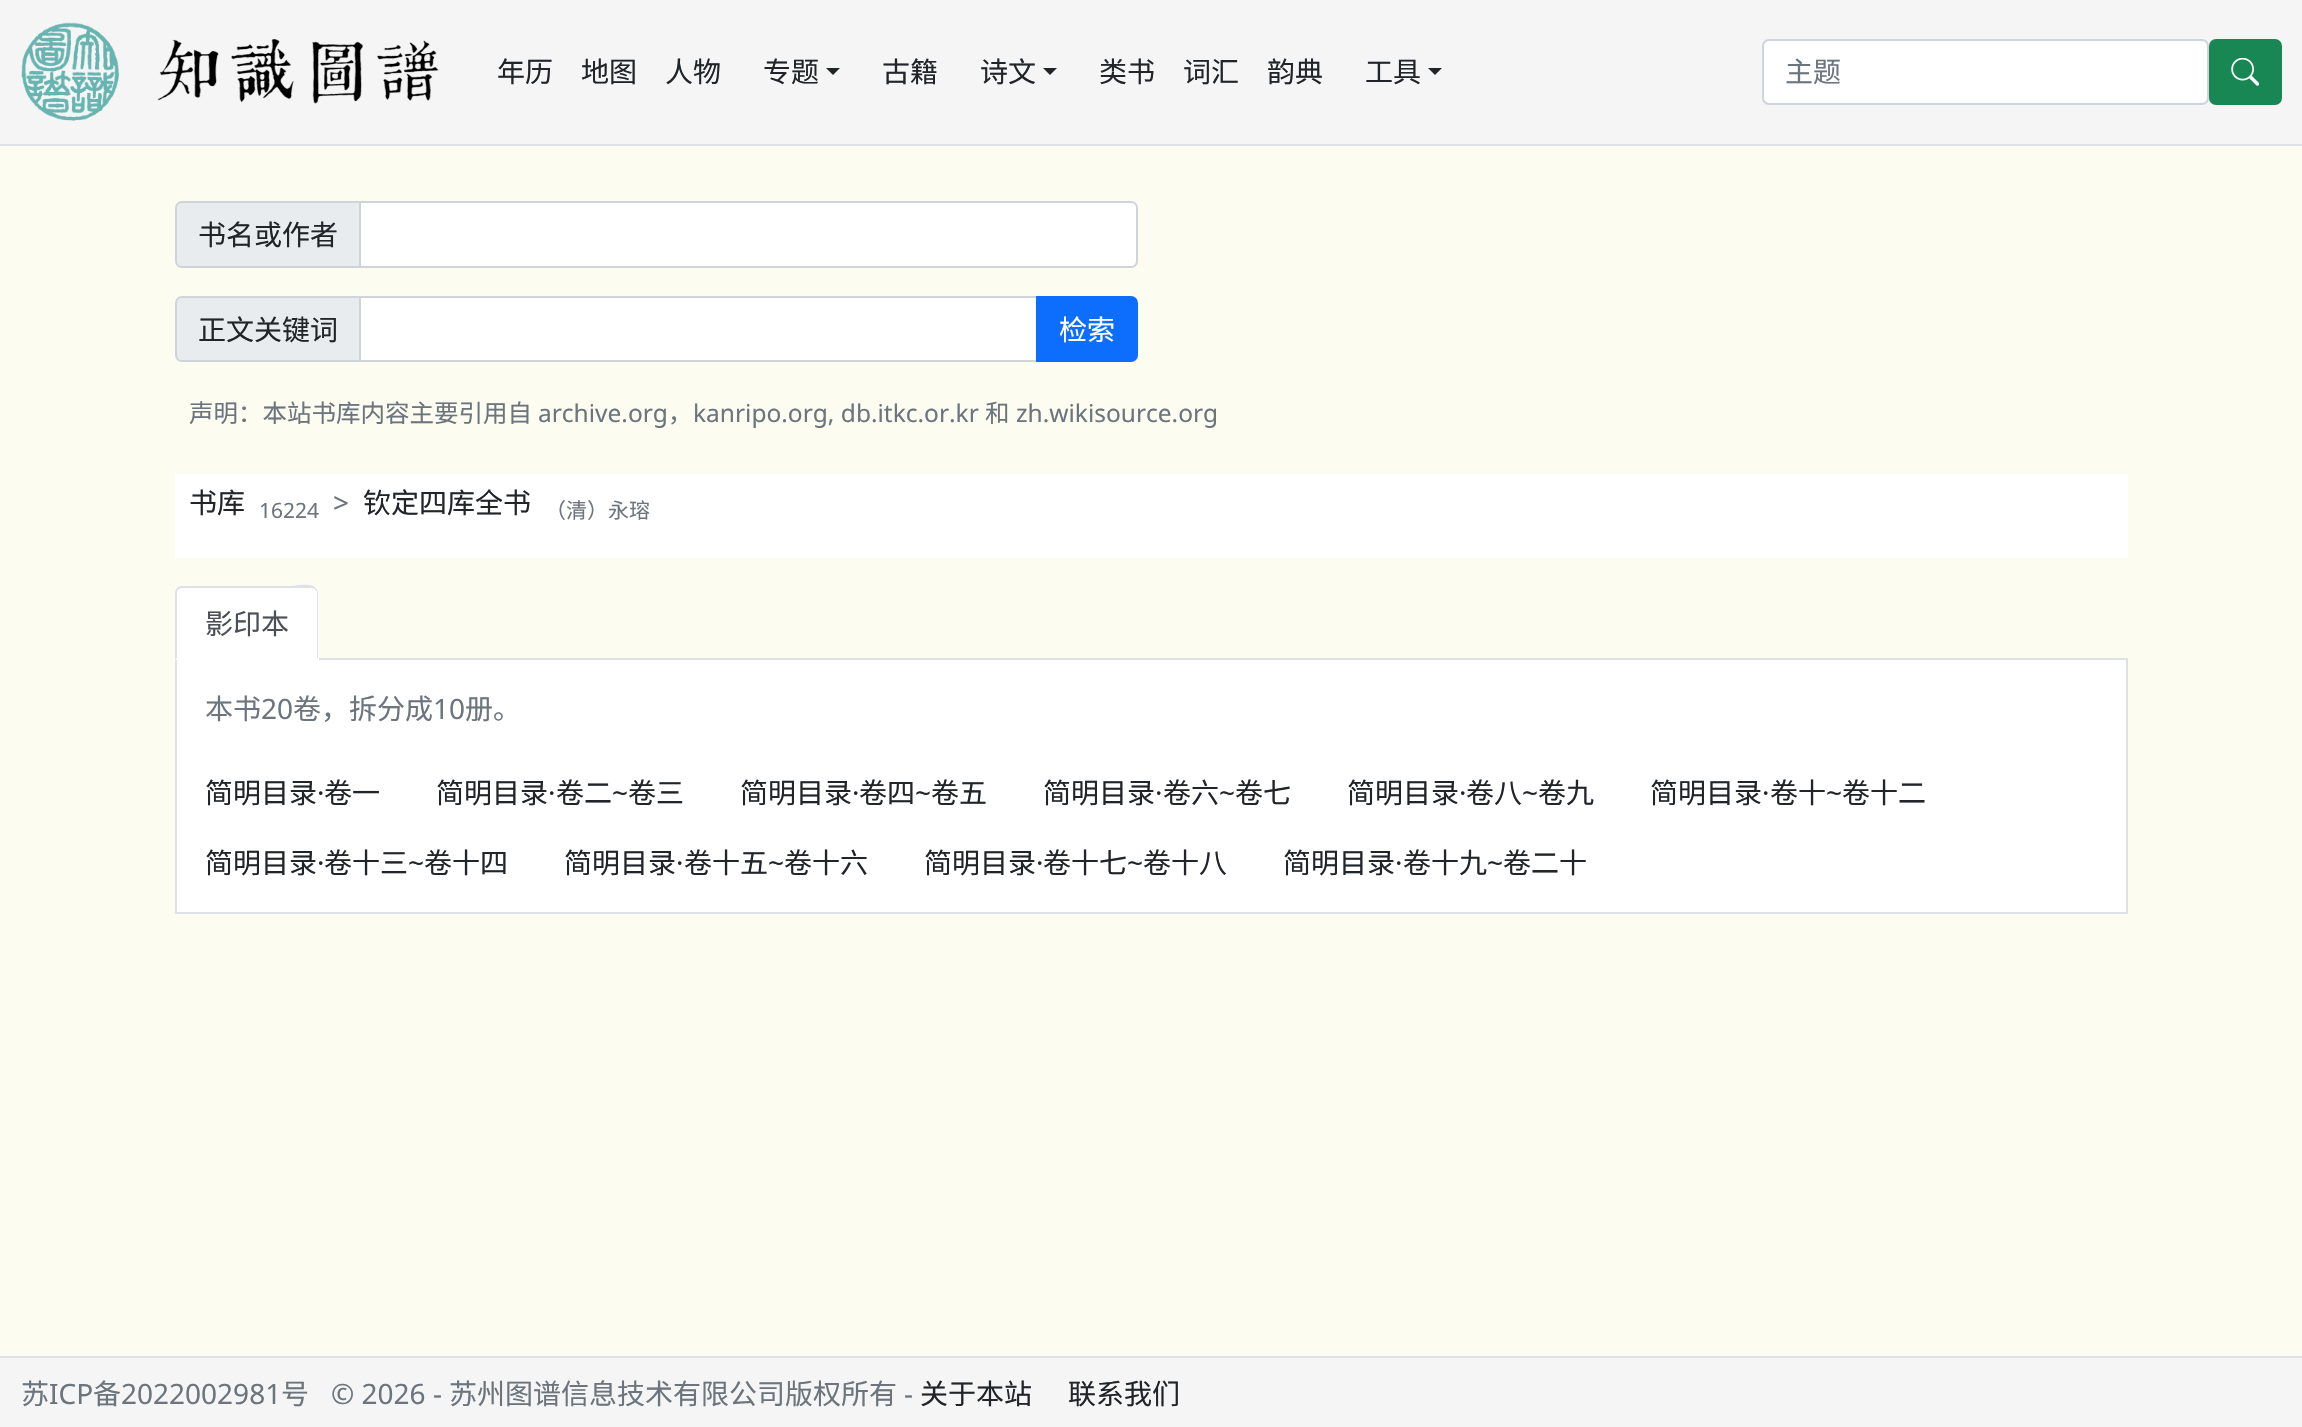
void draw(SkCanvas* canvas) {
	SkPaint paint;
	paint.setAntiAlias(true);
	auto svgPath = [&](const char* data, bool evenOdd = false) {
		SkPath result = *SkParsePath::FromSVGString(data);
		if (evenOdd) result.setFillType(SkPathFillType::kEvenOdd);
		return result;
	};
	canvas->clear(0xfffcfcf1);
	paint.setColor(0xfff5f5f5);
	canvas->drawRect(SkRect::MakeXYWH(0, 0, 2302, 144), paint);
	paint.setColor(0xffdee2e6);
	canvas->drawRect(SkRect::MakeXYWH(0, 144, 2302, 2), paint);
	canvas->drawImageRect(SkImages::DeferredFromEncodedData(SkData::MakeFromFileName("img1.png")), SkRect::MakeXYWH(21, 22, 98, 99), SkSamplingOptions());
	canvas->drawImageRect(SkImages::DeferredFromEncodedData(SkData::MakeFromFileName("img2.png")), SkRect::MakeXYWH(157, 39, 283, 65), SkSamplingOptions());
	SkFont f1(fontMgr->matchFamilyStyle("Noto Sans CJK SC", SkFontStyle::Normal()), 28);
	f1.setSubpixel(true);
	paint.setColor(0xff212529);
	canvas->drawString("年历", 497, 82, f1, paint);
	canvas->drawString("地图", 581, 82, f1, paint);
	canvas->drawString("人物", 665, 82, f1, paint);
	canvas->drawString("专题", 763, 82, f1, paint);
	canvas->drawPath(svgPath("M826 68H840L833 75Z"), paint);
	canvas->drawString("古籍", 882, 82, f1, paint);
	canvas->drawString("诗文", 980, 82, f1, paint);
	canvas->drawPath(svgPath("M1043 68H1057L1050 75Z"), paint);
	canvas->drawString("类书", 1099, 82, f1, paint);
	canvas->drawString("词汇", 1183, 82, f1, paint);
	canvas->drawString("韵典", 1267, 82, f1, paint);
	canvas->drawString("工具", 1365, 82, f1, paint);
	canvas->drawPath(svgPath("M1428 68H1442L1435 75Z"), paint);
	paint.setColor(0xffffffff);
	canvas->drawRoundRect(SkRect::MakeXYWH(1763, 40, 445, 64), 6, 6, paint);
	paint.setStroke(true);
	paint.setStrokeWidth(2);
	paint.setColor(0xffced4da);
	canvas->drawRoundRect(SkRect::MakeXYWH(1763, 40, 445, 64), 6, 6, paint);
	paint.setStroke(false);
	paint.setColor(0xff6c757d);
	canvas->drawString("主题", 1785, 82, f1, paint);
	paint.setColor(0xff198754);
	canvas->drawRoundRect(SkRect::MakeXYWH(2210, 40, 71, 64), 6, 6, paint);
	paint.setStroke(true);
	canvas->drawRoundRect(SkRect::MakeXYWH(2210, 40, 71, 64), 6, 6, paint);
	canvas->drawImageRect(SkImages::DeferredFromEncodedData(SkData::MakeFromFileName("img3.png")), SkRect::MakeXYWH(2231, 58, 28, 28), SkSamplingOptions());
	paint.setStroke(false);
	paint.setColor(0xffe9ecef);
	canvas->drawPath(svgPath("M182 202H360V267H182C178.5 267 176 264.5 176 261V208C176 204.5 178.5 202 182 202Z"), paint);
	paint.setStroke(true);
	paint.setColor(0xffced4da);
	canvas->drawPath(svgPath("M182 202H360V267H182C178.5 267 176 264.5 176 261V208C176 204.5 178.5 202 182 202Z"), paint);
	paint.setStroke(false);
	paint.setColor(0xff212529);
	canvas->drawString("书名或作者", 198, 245, f1, paint);
	paint.setColor(0xffffffff);
	canvas->drawPath(svgPath("M360 202H1131C1134.5 202 1137 204.5 1137 208V261C1137 264.5 1134.5 267 1131 267H360Z"), paint);
	paint.setStroke(true);
	paint.setColor(0xffced4da);
	canvas->drawPath(svgPath("M360 202H1131C1134.5 202 1137 204.5 1137 208V261C1137 264.5 1134.5 267 1131 267H360Z"), paint);
	paint.setStroke(false);
	paint.setColor(0xffe9ecef);
	canvas->drawPath(svgPath("M182 297H360V361H182C178.5 361 176 358.5 176 355V303C176 299.5 178.5 297 182 297Z"), paint);
	paint.setStroke(true);
	paint.setColor(0xffced4da);
	canvas->drawPath(svgPath("M182 297H360V361H182C178.5 361 176 358.5 176 355V303C176 299.5 178.5 297 182 297Z"), paint);
	paint.setStroke(false);
	paint.setColor(0xff212529);
	canvas->drawString("正文关键词", 198, 340, f1, paint);
	paint.setColor(0xffffffff);
	canvas->drawRect(SkRect::MakeXYWH(360, 297, 677, 64), paint);
	paint.setStroke(true);
	paint.setColor(0xffced4da);
	canvas->drawRect(SkRect::MakeXYWH(360, 297, 677, 64), paint);
	paint.setStroke(false);
	paint.setColor(0xff0d6efd);
	canvas->drawPath(svgPath("M1037 297H1131C1134.5 297 1137 299.5 1137 303V355C1137 358.5 1134.5 361 1131 361H1037Z"), paint);
	paint.setStroke(true);
	canvas->drawPath(svgPath("M1037 297H1131C1134.5 297 1137 299.5 1137 303V355C1137 358.5 1134.5 361 1131 361H1037Z"), paint);
	paint.setStroke(false);
	paint.setColor(0xffffffff);
	canvas->drawString("检索", 1059, 340, f1, paint);
	SkFont f2(fontMgr->matchFamilyStyle("Noto Sans CJK SC", SkFontStyle::Normal()), 24.5);
	f2.setSubpixel(true);
	paint.setColor(0xff6c757d);
	canvas->drawString("声明：本站书库内容主要引用自", 189, 422, f2, paint);
	SkFont f3(fontMgr->matchFamilyStyle("Noto Sans", SkFontStyle::Normal()), 24.5);
	f3.setSubpixel(true);
	canvas->drawString("archive.org", 538, 422, f3, paint);
	canvas->drawString("，", 668, 422, f2, paint);
	canvas->drawString("kanripo.org, db.itkc.or.kr", 693, 422, f3, paint);
	canvas->drawString("和", 985, 422, f2, paint);
	canvas->drawString("zh.wikisource.org", 1016, 422, f3, paint);
	paint.setColor(0xffffffff);
	canvas->drawRect(SkRect::MakeXYWH(175, 474, 1953, 84), paint);
	paint.setColor(0xff212529);
	canvas->drawString("书库", 189, 513, f1, paint);
	SkFont f4(fontMgr->matchFamilyStyle("Noto Sans", SkFontStyle::Normal()), 21);
	f4.setSubpixel(true);
	paint.setColor(0xff6c757d);
	canvas->drawString("16224", 259, 518, f4, paint);
	SkFont f5(fontMgr->matchFamilyStyle("Noto Sans", SkFontStyle::Normal()), 28);
	f5.setSubpixel(true);
	canvas->drawString(">", 333, 513, f5, paint);
	paint.setColor(0xff212529);
	canvas->drawString("钦定四库全书", 363, 513, f1, paint);
	SkFont f6(fontMgr->matchFamilyStyle("Noto Sans CJK SC", SkFontStyle::Normal()), 21);
	f6.setSubpixel(true);
	paint.setColor(0xff6c757d);
	canvas->drawString("（清）永瑢", 545, 518, f6, paint);
	paint.setColor(0xffdee2e6);
	canvas->drawRect(SkRect::MakeXYWH(319, 658, 1809, 2), paint);
	paint.setColor(0xffffffff);
	canvas->drawPath(svgPath("M182 586H312C316 586 319 589 319 593V660H175V593C175 589 178 586 182 586Z"), paint);
	paint.setColor(0xffdee2e6);
	canvas->drawPath(svgPath("M182 588C180 588 179 589 178 590L177 588L180 586H291C292 586 311 582 316 588L315 589L312 588Z"), paint);
	canvas->drawPath(svgPath("M316 588C317 590 318 591 318 593V659L317 658V592L315 589Z"), paint);
	paint.setColor(0xffffffff);
	canvas->drawPath(svgPath("M318 660H175L177 658H317Z"), paint);
	paint.setColor(0xffdee2e6);
	canvas->drawPath(svgPath("M175 660L177 658V593C177 592 177 590 178 590L177 588C176 589 175 591 175 593Z"), paint);
	paint.setColor(0xff495057);
	canvas->drawString("影印本", 205, 634, f1, paint);
	paint.setColor(0xffffffff);
	canvas->drawRect(SkRect::MakeXYWH(177, 660, 1949, 252), paint);
	paint.setColor(0xffdee2e6);
	canvas->drawRect(SkRect::MakeXYWH(2126, 660, 2, 254), paint);
	canvas->drawRect(SkRect::MakeXYWH(175, 912, 1953, 2), paint);
	canvas->drawRect(SkRect::MakeXYWH(175, 660, 2, 254), paint);
	paint.setColor(0xff6c757d);
	canvas->drawString("本书", 205, 719, f1, paint);
	canvas->drawString("20", 261, 719, f5, paint);
	canvas->drawString("卷，拆分成", 293, 719, f1, paint);
	canvas->drawString("10", 433, 719, f5, paint);
	canvas->drawString("册。", 465, 719, f1, paint);
	paint.setColor(0xff212529);
	canvas->drawString("简明目录", 205, 803, f1, paint);
	canvas->drawString("·", 317, 803, f5, paint);
	canvas->drawString("卷一", 324, 803, f1, paint);
	canvas->drawString("简明目录", 436, 803, f1, paint);
	canvas->drawString("·", 548, 803, f5, paint);
	canvas->drawString("卷二", 556, 803, f1, paint);
	canvas->drawString("~", 612, 803, f5, paint);
	canvas->drawString("卷三", 628, 803, f1, paint);
	canvas->drawString("简明目录", 740, 803, f1, paint);
	canvas->drawString("·", 852, 803, f5, paint);
	canvas->drawString("卷四", 859, 803, f1, paint);
	canvas->drawString("~", 915, 803, f5, paint);
	canvas->drawString("卷五", 931, 803, f1, paint);
	canvas->drawString("简明目录", 1043, 803, f1, paint);
	canvas->drawString("·", 1155, 803, f5, paint);
	canvas->drawString("卷六", 1163, 803, f1, paint);
	canvas->drawString("~", 1219, 803, f5, paint);
	canvas->drawString("卷七", 1235, 803, f1, paint);
	canvas->drawString("简明目录", 1347, 803, f1, paint);
	canvas->drawString("·", 1459, 803, f5, paint);
	canvas->drawString("卷八", 1466, 803, f1, paint);
	canvas->drawString("~", 1522, 803, f5, paint);
	canvas->drawString("卷九", 1538, 803, f1, paint);
	canvas->drawString("简明目录", 1650, 803, f1, paint);
	canvas->drawString("·", 1762, 803, f5, paint);
	canvas->drawString("卷十", 1770, 803, f1, paint);
	canvas->drawString("~", 1826, 803, f5, paint);
	canvas->drawString("卷十二", 1842, 803, f1, paint);
	canvas->drawString("简明目录", 205, 873, f1, paint);
	canvas->drawString("·", 317, 873, f5, paint);
	canvas->drawString("卷十三", 324, 873, f1, paint);
	canvas->drawString("~", 408, 873, f5, paint);
	canvas->drawString("卷十四", 424, 873, f1, paint);
	canvas->drawString("简明目录", 564, 873, f1, paint);
	canvas->drawString("·", 676, 873, f5, paint);
	canvas->drawString("卷十五", 684, 873, f1, paint);
	canvas->drawString("~", 768, 873, f5, paint);
	canvas->drawString("卷十六", 784, 873, f1, paint);
	canvas->drawString("简明目录", 924, 873, f1, paint);
	canvas->drawString("·", 1036, 873, f5, paint);
	canvas->drawString("卷十七", 1043, 873, f1, paint);
	canvas->drawString("~", 1127, 873, f5, paint);
	canvas->drawString("卷十八", 1143, 873, f1, paint);
	canvas->drawString("简明目录", 1283, 873, f1, paint);
	canvas->drawString("·", 1395, 873, f5, paint);
	canvas->drawString("卷十九", 1403, 873, f1, paint);
	canvas->drawString("~", 1487, 873, f5, paint);
	canvas->drawString("卷二十", 1503, 873, f1, paint);
	paint.setColor(0xfff5f5f5);
	canvas->drawRect(SkRect::MakeXYWH(0, 1358, 2302, 69), paint);
	paint.setColor(0xffdee2e6);
	canvas->drawRect(SkRect::MakeXYWH(0, 1356, 2302, 2), paint);
	paint.setColor(0xff6c757d);
	canvas->drawString("苏", 21, 1404, f1, paint);
	canvas->drawString("ICP", 49, 1404, f5, paint);
	canvas->drawString("备", 93, 1404, f1, paint);
	canvas->drawString("2022002981", 121, 1404, f5, paint);
	canvas->drawString("号", 281, 1404, f1, paint);
	canvas->drawString("© 2026 -", 331, 1404, f5, paint);
	canvas->drawString("苏州图谱信息技术有限公司版权所有", 449, 1404, f1, paint);
	canvas->drawString("-", 904, 1404, f5, paint);
	paint.setColor(0xff212529);
	canvas->drawString("关于本站", 920, 1404, f1, paint);
	canvas->drawString("联系我们", 1068, 1404, f1, paint);
}
